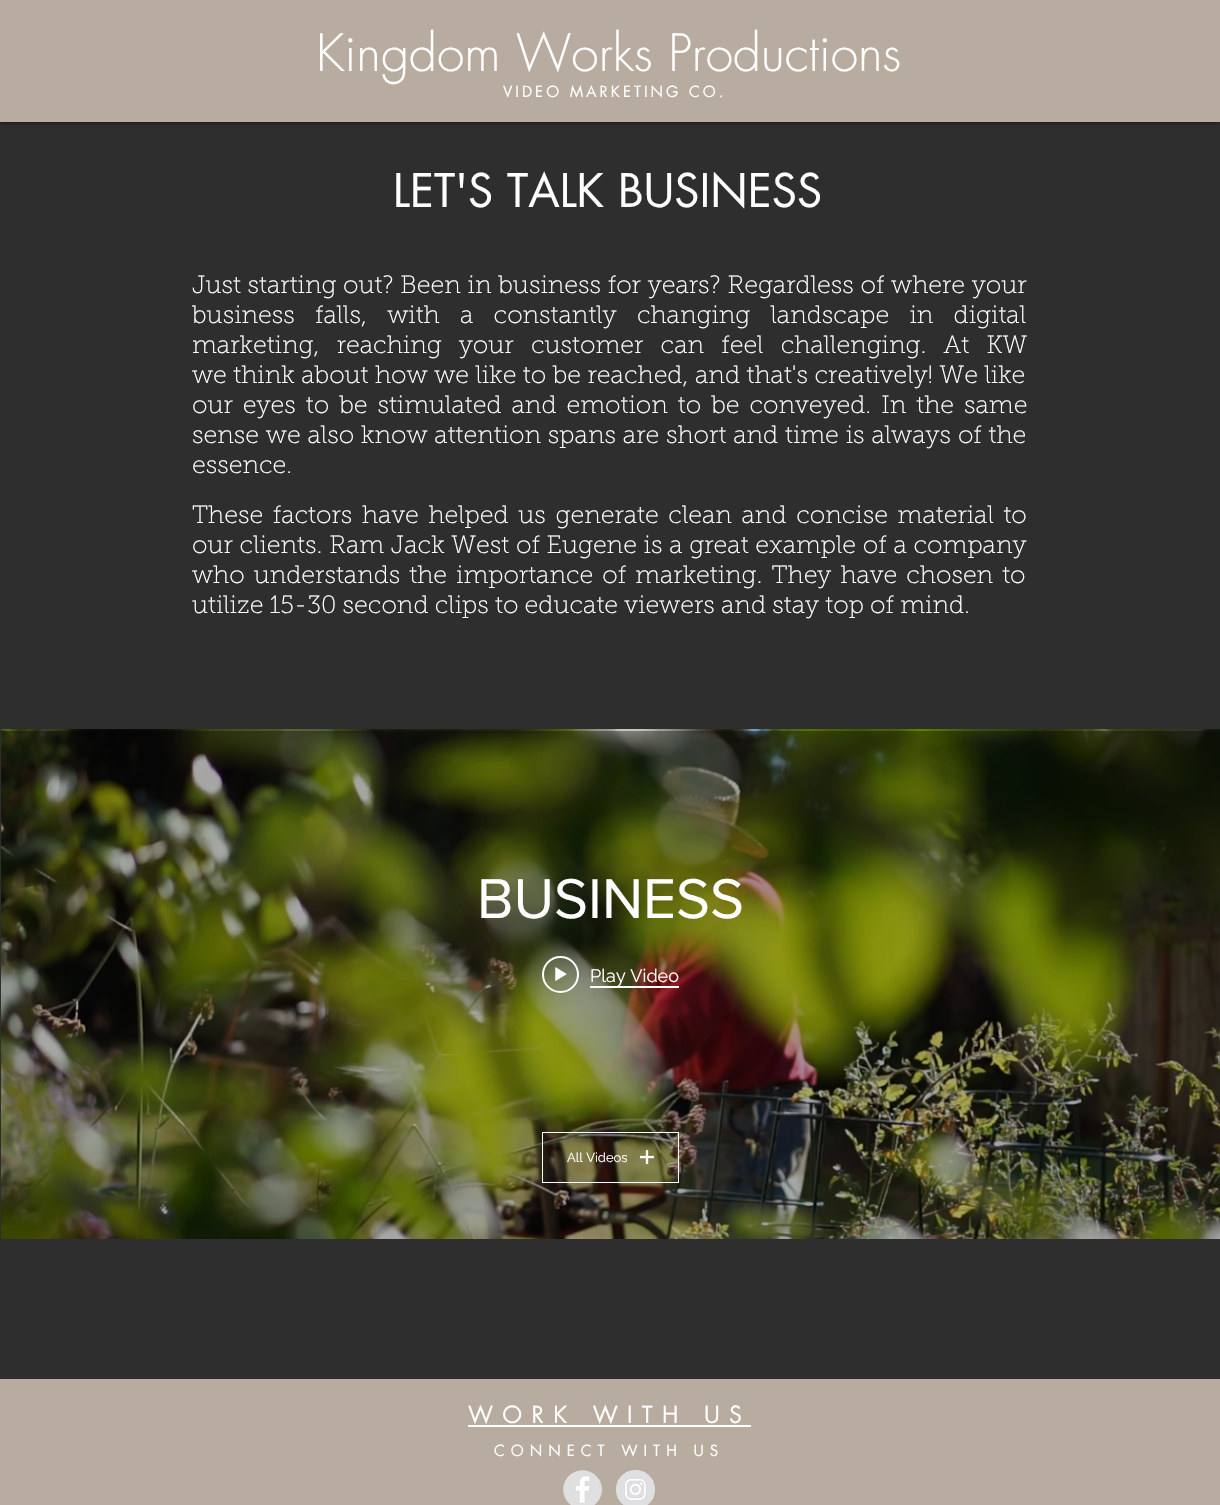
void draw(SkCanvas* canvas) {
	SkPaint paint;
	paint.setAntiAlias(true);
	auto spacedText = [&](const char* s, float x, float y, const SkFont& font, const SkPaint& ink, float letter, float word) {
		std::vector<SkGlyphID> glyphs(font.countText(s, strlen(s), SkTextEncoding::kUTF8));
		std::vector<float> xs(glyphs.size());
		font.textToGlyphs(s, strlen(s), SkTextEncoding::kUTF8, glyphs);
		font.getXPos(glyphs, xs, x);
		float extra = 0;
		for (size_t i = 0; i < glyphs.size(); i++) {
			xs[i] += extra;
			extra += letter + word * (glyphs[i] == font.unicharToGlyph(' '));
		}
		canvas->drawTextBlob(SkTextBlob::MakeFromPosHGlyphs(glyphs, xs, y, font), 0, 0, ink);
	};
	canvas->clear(0xff2f2e2e);
	paint.setColor(0xb3000000);
	paint.setMaskFilter(SkMaskFilter::MakeBlur(kNormal_SkBlurStyle, 2.5));
	canvas->drawRect(SkRect::MakeXYWH(0, 0, 1220, 122), paint);
	paint.setMaskFilter(nullptr);
	paint.setColor(0xffb7ac9f);
	canvas->drawRect(SkRect::MakeXYWH(0, 0, 1220, 122), paint);
	SkFont f1(fontMgr->matchFamilyStyle("futura", SkFontStyle(300, SkFontStyle::kNormal_Width, SkFontStyle::kUpright_Slant)), 50);
	f1.setSubpixel(true);
	paint.setColor(0xffffffff);
	canvas->drawString("Kingdom Works Productions", 316, 71, f1, paint);
	SkFont f2(fontMgr->matchFamilyStyle("futura", SkFontStyle::Normal()), 15);
	f2.setSubpixel(true);
	spacedText("VIDEO MARKETING CO.", 503, 97, f2, paint, 3, 0);
	SkFont f3(fontMgr->matchFamilyStyle("futura", SkFontStyle::Normal()), 45);
	f3.setSubpixel(true);
	canvas->drawString("LET'S TALK BUSINESS", 393, 207, f3, paint);
	SkFont f4(fontMgr->matchFamilyStyle("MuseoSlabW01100", SkFontStyle(100, SkFontStyle::kNormal_Width, SkFontStyle::kUpright_Slant)), 25);
	f4.setSubpixel(true);
	spacedText("Just starting out? Been in business for years? Regardless of where your", 192, 293, f4, paint, 0, 0.5);
	spacedText("business falls, with a constantly changing landscape in digital", 192, 323, f4, paint, 0, 14);
	spacedText("marketing, reaching your customer can feel challenging. At KW", 192, 353, f4, paint, 0, 11);
	spacedText("we think about how we like to be reached, and that's creatively! We like", 192, 383, f4, paint, 0, 0.25);
	spacedText("our eyes to be stimulated and emotion to be conveyed. In the same", 192, 413, f4, paint, 0, 3.75);
	spacedText("sense we also know attention spans are short and time is always of the", 192, 443, f4, paint, 0, 0.6);
	canvas->drawString("essence.", 192, 473, f4, paint);
	spacedText("These factors have helped us generate clean and concise material to", 192, 523, f4, paint, 0, 3.4);
	spacedText("our clients. Ram Jack West of Eugene is a great example of a company", 192, 553, f4, paint, 0, 0.5);
	spacedText("who understands the importance of marketing. They have chosen to", 192, 583, f4, paint, 0, 2.75);
	canvas->drawString("utilize 15-30 second clips to educate viewers and stay top of mind.", 192, 613, f4, paint);
	canvas->drawImageRect(SkImages::DeferredFromEncodedData(SkData::MakeFromFileName("img1.png")), SkRect::MakeXYWH(1, 729, 1219, 2), SkSamplingOptions());
	canvas->drawImageRect(SkImages::DeferredFromEncodedData(SkData::MakeFromFileName("img2.png")), SkRect::MakeXYWH(1, 731, 1219, 508), SkSamplingOptions());
	SkFont f5(fontMgr->matchFamilyStyle("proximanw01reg", SkFontStyle::Normal()), 58);
	f5.setSubpixel(true);
	canvas->drawString("BUSINESS", 477, 918, f5, paint);
	paint.setStroke(true);
	paint.setStrokeWidth(2);
	canvas->drawCircle(560.5, 974.5, 17.5, paint);
	canvas->drawImageRect(SkImages::DeferredFromEncodedData(SkData::MakeFromFileName("img3.png")), SkRect::MakeXYWH(555, 967, 12, 14), SkSamplingOptions());
	paint.setStroke(false);
	canvas->drawRect(SkRect::MakeXYWH(590, 986, 89, 2), paint);
	SkFont f6(fontMgr->matchFamilyStyle("Raleway", SkFontStyle::Normal()), 18);
	f6.setSubpixel(true);
	canvas->drawString("Play Video", 590, 982, f6, paint);
	paint.setStroke(true);
	paint.setStrokeWidth(1);
	canvas->drawRect(SkRect::MakeXYWH(542.5, 1132.5, 136, 50), paint);
	SkFont f7(fontMgr->matchFamilyStyle("Raleway", SkFontStyle::Normal()), 13);
	f7.setSubpixel(true);
	paint.setStroke(false);
	canvas->drawString("All Videos", 567, 1162, f7, paint);
	canvas->drawImageRect(SkImages::DeferredFromEncodedData(SkData::MakeFromFileName("img4.png")), SkRect::MakeXYWH(640, 1150, 14, 15), SkSamplingOptions());
	paint.setColor(0xffb7ac9f);
	canvas->drawRect(SkRect::MakeXYWH(0, 1379, 1220, 126), paint);
	SkFont f8(fontMgr->matchFamilyStyle("futura", SkFontStyle::Normal()), 23);
	f8.setSubpixel(true);
	paint.setColor(0xffffffff);
	spacedText("WORK WITH US", 468, 1423, f8, paint, 9.25, 0);
	canvas->drawRect(SkRect::MakeXYWH(468, 1425, 283, 2), paint);
	spacedText("CONNECT WITH US", 494, 1456, f2, paint, 6, 0);
	canvas->drawImageRect(SkImages::DeferredFromEncodedData(SkData::MakeFromFileName("img5.png")), SkRect::MakeXYWH(563, 1470, 39, 35), SkSamplingOptions());
	canvas->drawImageRect(SkImages::DeferredFromEncodedData(SkData::MakeFromFileName("img6.png")), SkRect::MakeXYWH(616, 1470, 39, 35), SkSamplingOptions());
}
